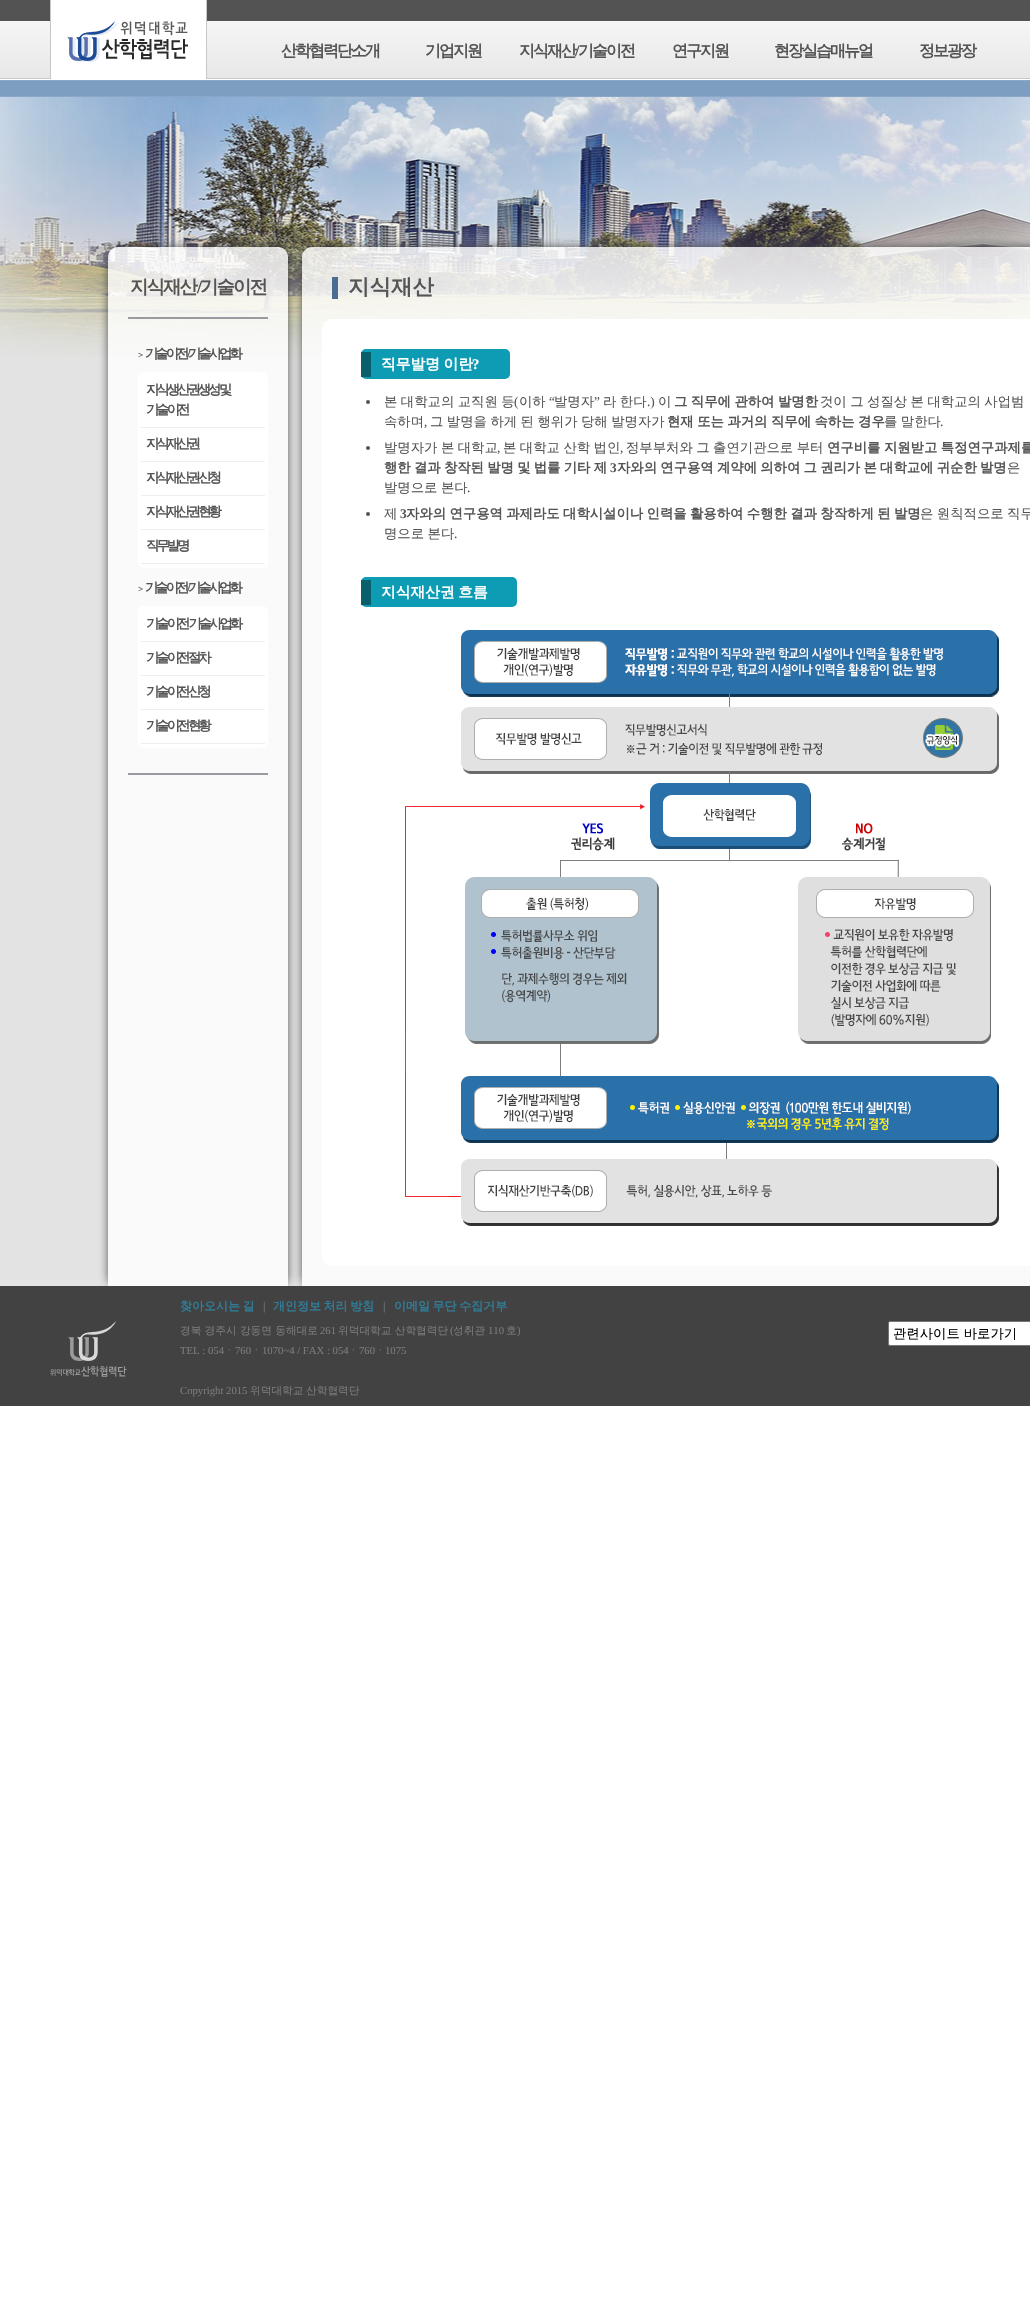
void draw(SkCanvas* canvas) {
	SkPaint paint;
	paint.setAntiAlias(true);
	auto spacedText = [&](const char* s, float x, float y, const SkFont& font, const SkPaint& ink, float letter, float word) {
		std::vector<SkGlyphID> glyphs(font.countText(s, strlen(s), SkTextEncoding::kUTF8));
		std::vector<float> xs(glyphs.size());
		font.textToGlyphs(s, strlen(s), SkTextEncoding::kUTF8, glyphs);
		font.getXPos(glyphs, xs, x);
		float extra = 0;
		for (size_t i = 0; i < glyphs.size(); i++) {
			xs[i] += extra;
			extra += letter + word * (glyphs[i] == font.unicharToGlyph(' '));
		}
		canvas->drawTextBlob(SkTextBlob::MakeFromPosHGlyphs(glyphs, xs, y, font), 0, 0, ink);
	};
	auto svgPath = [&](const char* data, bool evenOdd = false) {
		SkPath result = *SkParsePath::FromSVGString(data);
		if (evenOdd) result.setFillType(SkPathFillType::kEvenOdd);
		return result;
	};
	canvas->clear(0xffffffff);
	paint.setColor(0xff535353);
	canvas->drawRect(SkRect::MakeXYWH(0, 0, 1030, 21), paint);
	{
		const SkColor colors[] = {0xfff6f6f6, 0xffe7e7e7};
		const float stops[] = {0, 1};
		const SkPoint ends[] = {{600, 21}, {600, 78}};
		paint.setShader(SkGradientShader::MakeLinear(ends, colors, stops, 2, SkTileMode::kClamp));
		paint.setAlpha(255);
	}
	canvas->drawRect(SkRect::MakeXYWH(0, 21, 1030, 57), paint);
	paint.setShader(nullptr);
	paint.setColor(0xffc7c7c7);
	canvas->drawRect(SkRect::MakeXYWH(0, 78, 1030, 1), paint);
	paint.setColor(0xffffffff);
	canvas->drawRect(SkRect::MakeXYWH(51, 0, 155, 79), paint);
	paint.setColor(0xffc7c7c7);
	canvas->drawRect(SkRect::MakeXYWH(206, 0, 1, 79), paint);
	canvas->drawRect(SkRect::MakeXYWH(50, 0, 1, 79), paint);
	canvas->drawImageRect(SkImages::DeferredFromEncodedData(SkData::MakeFromFileName("img1.png")), SkRect::MakeXYWH(67, 21, 121, 41), SkSamplingOptions());
	SkFont f1(fontMgr->matchFamilyStyle("WenQuanYi Zen Hei", SkFontStyle::Bold()), 16);
	f1.setSubpixel(true);
	paint.setColor(0xff555555);
	spacedText("산학협력단소개", 281, 56, f1, paint, -2, 0);
	spacedText("기업지원", 425, 56, f1, paint, -2, 0);
	spacedText("지식재산", 519, 56, f1, paint, -2, 0);
	SkFont f2(fontMgr->matchFamilyStyle("Liberation Serif", SkFontStyle::Bold()), 16);
	f2.setSubpixel(true);
	spacedText("/", 575, 56, f2, paint, -2, 0);
	spacedText("기술이전", 578, 56, f1, paint, -2, 0);
	spacedText("연구지원", 672, 56, f1, paint, -2, 0);
	spacedText("현장실습매뉴얼", 774, 56, f1, paint, -2, 0);
	spacedText("정보광장", 919, 56, f1, paint, -2, 0);
	paint.setColor(0xff7d9ec1);
	canvas->drawRect(SkRect::MakeXYWH(0, 81, 1030, 15), paint);
	paint.setColor(0xff8aa7c7);
	canvas->drawRect(SkRect::MakeXYWH(0, 80, 1030, 1), paint);
	canvas->drawRect(SkRect::MakeXYWH(0, 96, 1030, 1), paint);
	paint.setColor(0xffe3e3e3);
	canvas->drawRect(SkRect::MakeXYWH(0, 357, 1030, 929), paint);
	canvas->drawImageRect(SkImages::DeferredFromEncodedData(SkData::MakeFromFileName("img2.png")), SkRect::MakeXYWH(0, 97, 1030, 260), SkSamplingOptions());
	canvas->save();
	canvas->clipPath(svgPath("M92 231H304V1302H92ZM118 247H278C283.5 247 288 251.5 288 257V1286H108V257C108 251.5 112.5 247 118 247Z", true), true);
	paint.setColor(0xcc333333);
	paint.setMaskFilter(SkMaskFilter::MakeBlur(kNormal_SkBlurStyle, 5));
	canvas->drawRoundRect(SkRect::MakeXYWH(108, 247, 180, 1039), 10, 10, paint);
	paint.setMaskFilter(nullptr);
	canvas->restore();
	paint.setColor(0xccffffff);
	canvas->drawPath(svgPath("M118 247H278C283.5 247 288 251.5 288 257V1286H108V257C108 251.5 112.5 247 118 247Z"), paint);
	canvas->save();
	canvas->clipPath(svgPath("M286 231H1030V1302H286ZM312 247H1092C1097.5 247 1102 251.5 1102 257V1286H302V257C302 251.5 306.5 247 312 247Z", true), true);
	paint.setColor(0xcc333333);
	paint.setMaskFilter(SkMaskFilter::MakeBlur(kNormal_SkBlurStyle, 5));
	canvas->drawRoundRect(SkRect::MakeXYWH(302, 247, 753, 1039), 10, 10, paint);
	paint.setMaskFilter(nullptr);
	canvas->restore();
	paint.setColor(0xccffffff);
	canvas->drawPath(svgPath("M312 247H1030C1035.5 247 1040 251.5 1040 257V1286H302V257C302 251.5 306.5 247 312 247Z"), paint);
	SkFont f3(fontMgr->matchFamilyStyle("WenQuanYi Zen Hei", SkFontStyle::Bold()), 18.5);
	f3.setSubpixel(true);
	paint.setColor(0xff555555);
	spacedText("지식재산", 130, 293, f3, paint, -2, 0);
	SkFont f4(fontMgr->matchFamilyStyle("Liberation Serif", SkFontStyle::Bold()), 18.5);
	f4.setSubpixel(true);
	spacedText("/", 197, 293, f4, paint, -2, 0);
	spacedText("기술이전", 200, 293, f3, paint, -2, 0);
	paint.setColor(0xff9b9aa0);
	canvas->drawRect(SkRect::MakeXYWH(128, 317, 140, 2), paint);
	SkFont f5(fontMgr->matchFamilyStyle("WenQuanYi Zen Hei", SkFontStyle::Bold()), 13.35);
	f5.setSubpixel(true);
	paint.setColor(0xff555555);
	spacedText("기술이전", 145, 358, f5, paint, -3, 0);
	SkFont f6(fontMgr->matchFamilyStyle("Liberation Serif", SkFontStyle::Bold()), 13.35);
	f6.setSubpixel(true);
	spacedText("/", 187, 358, f6, paint, -3, 0);
	spacedText("기술사업화", 188, 358, f5, paint, -3, 0);
	SkFont f7(fontMgr->matchFamilyStyle("Liberation Serif", SkFontStyle::Bold()), 9);
	f7.setSubpixel(true);
	spacedText(">", 138, 358, f7, paint, -3, 0);
	paint.setColor(0xffffffff);
	canvas->drawRoundRect(SkRect::MakeXYWH(138, 372, 130, 196), 5, 5, paint);
	paint.setColor(0xffeeeeee);
	canvas->drawRect(SkRect::MakeXYWH(141, 427, 124, 1), paint);
	paint.setColor(0xff555555);
	spacedText("지식생산권생성 및", 146, 394, f5, paint, -3, -0.5);
	spacedText("기술이전", 146, 414, f5, paint, -3, 0);
	paint.setColor(0xffeeeeee);
	canvas->drawRect(SkRect::MakeXYWH(141, 461, 124, 1), paint);
	paint.setColor(0xff555555);
	spacedText("지식재산권", 146, 448, f5, paint, -3, 0);
	paint.setColor(0xffeeeeee);
	canvas->drawRect(SkRect::MakeXYWH(141, 495, 124, 1), paint);
	paint.setColor(0xff555555);
	spacedText("지식재산권 신청", 146, 482, f5, paint, -3, -0.5);
	paint.setColor(0xffeeeeee);
	canvas->drawRect(SkRect::MakeXYWH(141, 529, 124, 1), paint);
	paint.setColor(0xff555555);
	spacedText("지식재산권 현황", 146, 516, f5, paint, -3, -0.5);
	paint.setColor(0xffeeeeee);
	canvas->drawRect(SkRect::MakeXYWH(141, 563, 124, 1), paint);
	paint.setColor(0xff555555);
	spacedText("직무발명", 146, 550, f5, paint, -3, 0);
	spacedText("기술이전", 145, 592, f5, paint, -3, 0);
	spacedText("/", 187, 592, f6, paint, -3, 0);
	spacedText("기술사업화", 188, 592, f5, paint, -3, 0);
	spacedText(">", 138, 592, f7, paint, -3, 0);
	paint.setColor(0xffffffff);
	canvas->drawRoundRect(SkRect::MakeXYWH(138, 606, 130, 142), 5, 5, paint);
	paint.setColor(0xffeeeeee);
	canvas->drawRect(SkRect::MakeXYWH(141, 641, 124, 1), paint);
	paint.setColor(0xff555555);
	spacedText("기술이전 기술사업화", 146, 628, f5, paint, -3, 0);
	paint.setColor(0xffeeeeee);
	canvas->drawRect(SkRect::MakeXYWH(141, 675, 124, 1), paint);
	paint.setColor(0xff555555);
	spacedText("기술이전 절차", 146, 662, f5, paint, -3, -0.5);
	paint.setColor(0xffeeeeee);
	canvas->drawRect(SkRect::MakeXYWH(141, 709, 124, 1), paint);
	paint.setColor(0xff555555);
	spacedText("기술이전 신청", 146, 696, f5, paint, -3, -0.5);
	paint.setColor(0xffeeeeee);
	canvas->drawRect(SkRect::MakeXYWH(141, 743, 124, 1), paint);
	paint.setColor(0xff555555);
	spacedText("기술이전 현황", 146, 730, f5, paint, -3, -0.5);
	paint.setColor(0xff9b9aa0);
	canvas->drawRect(SkRect::MakeXYWH(128, 773, 140, 2), paint);
	paint.setColor(0xff4a6e92);
	canvas->drawRect(SkRect::MakeXYWH(332, 277, 6, 22), paint);
	SkFont f8(fontMgr->matchFamilyStyle("WenQuanYi Zen Hei", SkFontStyle::Bold()), 21.5);
	f8.setSubpixel(true);
	paint.setColor(0xff555555);
	canvas->drawString("지식재산", 348, 294, f8, paint);
	paint.setColor(0xffffffff);
	canvas->drawRoundRect(SkRect::MakeXYWH(322, 319, 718, 947), 10, 10, paint);
	paint.setColor(0xff0e9cb5);
	canvas->drawRoundRect(SkRect::MakeXYWH(361, 349, 149, 30), 5, 5, paint);
	paint.setColor(0xff0a5f6d);
	canvas->drawRect(SkRect::MakeXYWH(361, 352, 10, 25), paint);
	SkFont f9(fontMgr->matchFamilyStyle("WenQuanYi Zen Hei", SkFontStyle::Bold()), 14.75);
	f9.setSubpixel(true);
	paint.setColor(0xffffffff);
	spacedText("직무발명 이란", 381, 369, f9, paint, 0, -1);
	SkFont f10(fontMgr->matchFamilyStyle("Liberation Serif", SkFontStyle::Bold()), 14.75);
	f10.setSubpixel(true);
	canvas->drawString("?", 472, 369, f10, paint);
	SkFont f11(fontMgr->matchFamilyStyle("WenQuanYi Zen Hei", SkFontStyle(500, SkFontStyle::kNormal_Width, SkFontStyle::kUpright_Slant)), 13.35);
	f11.setSubpixel(true);
	paint.setColor(0xff555555);
	spacedText("본 대학교의 교직원 등", 384, 406, f11, paint, 0, -0.5);
	SkFont f12(fontMgr->matchFamilyStyle("Liberation Serif", SkFontStyle::Normal()), 13.35);
	f12.setSubpixel(true);
	canvas->drawString("(", 514, 406, f12, paint);
	canvas->drawString("이하", 519, 406, f11, paint);
	canvas->drawString("“", 549, 406, f12, paint);
	canvas->drawString("발명자", 554, 406, f11, paint);
	canvas->drawString("”", 594, 406, f12, paint);
	spacedText("라 한다", 603, 406, f11, paint, 0, -0.5);
	canvas->drawString(".)", 647, 406, f12, paint);
	canvas->drawString("이", 658, 406, f11, paint);
	spacedText("그 직무에 관하여 발명한", 674, 406, f5, paint, 0, -0.5);
	spacedText("것이 그 성질상 본 대학교의 사업범", 820, 406, f11, paint, 0, -0.5);
	canvas->drawCircle(368, 402, 2, paint);
	canvas->drawString("속하며", 384, 426, f11, paint);
	canvas->drawString(",", 424, 426, f12, paint);
	spacedText("그 발명을 하게 된 행위가 당해 발명자가", 430, 426, f11, paint, 0, -0.5);
	spacedText("현재 또는 과거의 직무에 속하는 경우", 667, 426, f5, paint, 0, -0.5);
	spacedText("를 말한다", 884, 426, f11, paint, 0, -0.5);
	canvas->drawString(".", 940, 426, f12, paint);
	canvas->drawCircle(368, 448, 2, paint);
	spacedText("발명자가 본 대학교", 384, 452, f11, paint, 0, -0.5);
	spacedText("본 대학교 산학 법인", 503, 452, f11, paint, 0, -0.5);
	spacedText("정부부처와 그 출연기관으로 부터", 626, 452, f11, paint, 0, -0.5);
	spacedText("연구비를 지원받고 특정연구과제를", 827, 452, f5, paint, 0, -0.5);
	canvas->drawString(",", 497, 452, f12, paint);
	canvas->drawString(",", 620, 452, f12, paint);
	spacedText("행한 결과 창작된 발명 및 법률 기타 제", 384, 472, f5, paint, 0, -0.75);
	canvas->drawString("3", 610, 472, f6, paint);
	spacedText("자와의 연구용역 계약에 의하여 그 권리가 본 대학교에 귀순한 발명", 617, 472, f5, paint, 0, -0.75);
	spacedText("은", 1007, 472, f11, paint, 0, -0.5);
	spacedText("발명으로 본다", 384, 492, f11, paint, 0, -0.5);
	canvas->drawString(".", 467, 492, f12, paint);
	canvas->drawCircle(368, 514, 2, paint);
	canvas->drawString("제", 384, 518, f11, paint);
	canvas->drawString("3", 400, 518, f6, paint);
	spacedText("자와의 연구용역 과제라도 대학시설이나 인력을 활용하여 수행한 결과 창작하게 된 발명", 406, 518, f5, paint, 0, -0.6);
	spacedText("은 원칙적으로 직무", 920, 518, f11, paint, 0, -0.5);
	spacedText("명으로 본다", 384, 538, f11, paint, 0, -0.5);
	canvas->drawString(".", 454, 538, f12, paint);
	paint.setColor(0xff0e9cb5);
	canvas->drawRoundRect(SkRect::MakeXYWH(361, 577, 156, 30), 5, 5, paint);
	paint.setColor(0xff0a5f6d);
	canvas->drawRect(SkRect::MakeXYWH(361, 580, 10, 25), paint);
	paint.setColor(0xffffffff);
	spacedText("지식재산권 흐름", 381, 597, f9, paint, 0, -1);
	canvas->drawImageRect(SkImages::DeferredFromEncodedData(SkData::MakeFromFileName("img3.png")), SkRect::MakeXYWH(405, 630, 594, 596), SkSamplingOptions());
	paint.setColor(0xff424242);
	canvas->drawRect(SkRect::MakeXYWH(0, 1286, 1030, 120), paint);
	SkFont f13(fontMgr->matchFamilyStyle("WenQuanYi Zen Hei", SkFontStyle::Bold()), 12);
	f13.setSubpixel(true);
	paint.setColor(0xff317b96);
	spacedText("찾아오시는 길", 180, 1310, f13, paint, 0, -1);
	SkFont f14(fontMgr->matchFamilyStyle("Liberation Serif", SkFontStyle::Normal()), 12);
	f14.setSubpixel(true);
	paint.setColor(0xff7b7b7b);
	canvas->drawString("|", 263, 1310, f14, paint);
	paint.setColor(0xff317b96);
	spacedText("개인정보 처리 방침", 273, 1310, f13, paint, 0, -1);
	paint.setColor(0xff7b7b7b);
	canvas->drawString("|", 383, 1310, f14, paint);
	paint.setColor(0xff317b96);
	spacedText("이메일 무단 수집거부", 394, 1310, f13, paint, 0, -1);
	canvas->drawImageRect(SkImages::DeferredFromEncodedData(SkData::MakeFromFileName("img4.png")), SkRect::MakeXYWH(50, 1321, 77, 56), SkSamplingOptions());
	SkFont f15(fontMgr->matchFamilyStyle("WenQuanYi Zen Hei", SkFontStyle(500, SkFontStyle::kNormal_Width, SkFontStyle::kUpright_Slant)), 10.7);
	f15.setSubpixel(true);
	paint.setColor(0xff7b7b7b);
	canvas->drawString("경북 경주시 강동면 동해대로", 180, 1334, f15, paint);
	SkFont f16(fontMgr->matchFamilyStyle("Liberation Serif", SkFontStyle::Normal()), 10.7);
	f16.setSubpixel(true);
	canvas->drawString("261", 320, 1334, f16, paint);
	canvas->drawString("위덕대학교 산학협력단", 338, 1334, f15, paint);
	canvas->drawString("(", 450, 1334, f16, paint);
	canvas->drawString("성취관", 453, 1334, f15, paint);
	canvas->drawString("110", 488, 1334, f16, paint);
	canvas->drawString("호", 506, 1334, f15, paint);
	canvas->drawString(")", 517, 1334, f16, paint);
	canvas->drawString("TEL : 054", 180, 1354, f16, paint);
	canvas->drawString("ㆍ", 224, 1354, f15, paint);
	canvas->drawString("760", 235, 1354, f16, paint);
	canvas->drawString("ㆍ", 251, 1354, f15, paint);
	canvas->drawString("1070~4 / FAX : 054", 262, 1354, f16, paint);
	canvas->drawString("ㆍ", 348, 1354, f15, paint);
	canvas->drawString("760", 359, 1354, f16, paint);
	canvas->drawString("ㆍ", 375, 1354, f15, paint);
	canvas->drawString("1075", 385, 1354, f16, paint);
	canvas->drawString("Copyright 2015", 180, 1394, f16, paint);
	canvas->drawString("위덕대학교", 250, 1394, f15, paint);
	canvas->drawString("산학협력단", 306, 1394, f15, paint);
	paint.setColor(0xffffffff);
	canvas->drawRoundRect(SkRect::MakeXYWH(888.5, 1321.5, 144, 24), 1.5, 1.5, paint);
	paint.setStroke(true);
	paint.setStrokeWidth(1);
	paint.setColor(0xff767676);
	canvas->drawRoundRect(SkRect::MakeXYWH(888.5, 1321.5, 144, 24), 1.5, 1.5, paint);
	paint.setStroke(false);
	paint.setColor(0xff000000);
	canvas->drawString("관련사이트 바로가기", 893, 1338, f11, paint);
}
